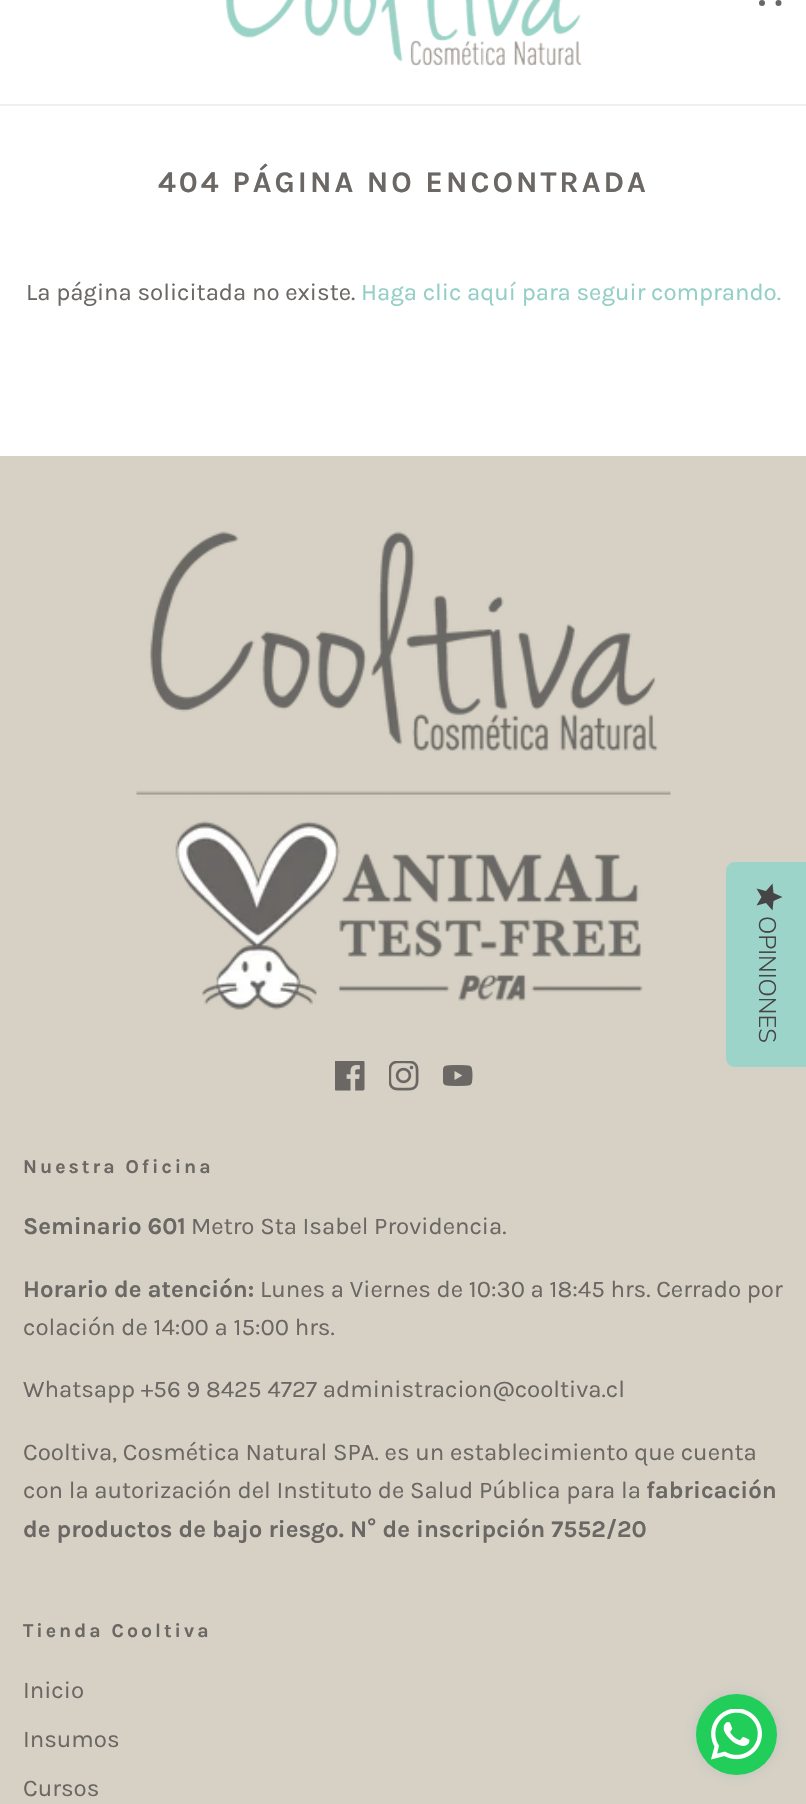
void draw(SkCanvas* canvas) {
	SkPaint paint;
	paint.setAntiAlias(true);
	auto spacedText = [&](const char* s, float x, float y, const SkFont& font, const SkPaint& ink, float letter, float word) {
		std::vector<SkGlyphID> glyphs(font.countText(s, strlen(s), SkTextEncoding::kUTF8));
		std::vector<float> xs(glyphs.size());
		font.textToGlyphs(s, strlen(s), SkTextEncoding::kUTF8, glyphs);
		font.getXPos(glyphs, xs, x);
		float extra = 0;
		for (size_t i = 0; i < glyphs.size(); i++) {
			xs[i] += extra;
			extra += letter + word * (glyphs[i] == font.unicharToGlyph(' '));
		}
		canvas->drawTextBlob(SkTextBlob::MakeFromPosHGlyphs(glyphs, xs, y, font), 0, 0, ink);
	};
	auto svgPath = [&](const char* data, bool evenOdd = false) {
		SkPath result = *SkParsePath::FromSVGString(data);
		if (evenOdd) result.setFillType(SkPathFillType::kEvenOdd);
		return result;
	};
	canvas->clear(0xffffffff);
	paint.setColor(0xfff0f0f0);
	canvas->drawRect(SkRect::MakeXYWH(0, 104, 806, 2), paint);
	canvas->drawImageRect(SkImages::DeferredFromEncodedData(SkData::MakeFromFileName("img1.png")), SkRect::MakeXYWH(225, 0, 357, 66), SkSamplingOptions());
	paint.setStroke(true);
	paint.setStrokeWidth(3);
	paint.setColor(0xff6a6764);
	canvas->drawCircle(762, 3, 1.5, paint);
	canvas->drawCircle(778.5, 3, 1.5, paint);
	SkFont f1(fontMgr->matchFamilyStyle("Karla", SkFontStyle::Bold()), 30);
	f1.setSubpixel(true);
	paint.setStroke(false);
	spacedText("404 PÁGINA NO ENCONTRADA", 158, 192, f1, paint, 3, 0);
	SkFont f2(fontMgr->matchFamilyStyle("Karla", SkFontStyle::Normal()), 24);
	f2.setSubpixel(true);
	canvas->drawString("La página solicitada no existe.", 26, 300, f2, paint);
	paint.setColor(0xff93cfc6);
	canvas->drawString("Haga clic aquí para seguir comprando.", 361, 300, f2, paint);
	paint.setColor(0xffd6d1c4);
	canvas->drawRect(SkRect::MakeXYWH(0, 456, 806, 1348), paint);
	canvas->drawImageRect(SkImages::DeferredFromEncodedData(SkData::MakeFromFileName("img2.png")), SkRect::MakeXYWH(136, 531, 535, 479), SkSamplingOptions());
	canvas->drawImageRect(SkImages::DeferredFromEncodedData(SkData::MakeFromFileName("img3.png")), SkRect::MakeXYWH(335, 1061, 30, 30), SkSamplingOptions());
	canvas->drawImageRect(SkImages::DeferredFromEncodedData(SkData::MakeFromFileName("img4.png")), SkRect::MakeXYWH(389, 1061, 30, 30), SkSamplingOptions());
	canvas->drawImageRect(SkImages::DeferredFromEncodedData(SkData::MakeFromFileName("img5.png")), SkRect::MakeXYWH(443, 1065, 30, 21), SkSamplingOptions());
	SkFont f3(fontMgr->matchFamilyStyle("Karla", SkFontStyle::Bold()), 19.5);
	f3.setSubpixel(true);
	paint.setColor(0xff6a6764);
	spacedText("Nuestra Oficina", 23, 1173, f3, paint, 3, 0);
	SkFont f4(fontMgr->matchFamilyStyle("Karla", SkFontStyle::Bold()), 24);
	f4.setSubpixel(true);
	canvas->drawString("Seminario 601", 23, 1234, f4, paint);
	canvas->drawString("Metro Sta Isabel Providencia.", 191, 1234, f2, paint);
	canvas->drawString("Horario de atención:", 23, 1297, f4, paint);
	canvas->drawString("Lunes a Viernes de 10:30 a 18:45 hrs. Cerrado por", 260, 1297, f2, paint);
	canvas->drawString("colación de 14:00 a 15:00 hrs.", 23, 1335, f2, paint);
	canvas->drawString("Whatsapp +56 9 8425 4727 administracion@cooltiva.cl", 23, 1397, f2, paint);
	canvas->drawString("Cooltiva, Cosmética Natural SPA. es un establecimiento que cuenta", 23, 1460, f2, paint);
	canvas->drawString("con la autorización del Instituto de Salud Pública para la", 23, 1498, f2, paint);
	canvas->drawString("fabricación", 646, 1498, f4, paint);
	canvas->drawString("de productos de bajo riesgo. N° de inscripción 7552/20", 23, 1537, f4, paint);
	spacedText("Tienda Cooltiva", 23, 1637, f3, paint, 3, 0);
	canvas->drawString("Inicio", 23, 1698, f2, paint);
	canvas->drawString("Insumos", 23, 1747, f2, paint);
	canvas->drawString("Cursos", 23, 1796, f2, paint);
	paint.setColor(0xff9dd4ca);
	canvas->drawPath(svgPath("M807 862V1067H735C730 1067 726 1063 726 1058V871C726 866 730 862 735 862Z"), paint);
	{
		const SkColor colors[] = {0xff454545, 0xffeaeaea};
		const float stops[] = {1, 1};
		const SkPoint ends[] = {{782, 884}, {782, 911}};
		paint.setShader(SkGradientShader::MakeLinear(ends, colors, stops, 2, SkTileMode::kClamp));
		paint.setAlpha(255);
	}
	canvas->drawPath(svgPath("M761.5 897L756.5 905.5L766 903L772.5 910.5L773.5 901L782.5 897L773.5 893L772.5 883.5L766 891L756.5 888.5Z"), paint);
	SkFont f5(fontMgr->matchFamilyStyle("Nunito Sans", SkFontStyle(300, SkFontStyle::kNormal_Width, SkFontStyle::kUpright_Slant)), 24);
	f5.setSubpixel(true);
	paint.setShader(nullptr);
	paint.setColor(0xff454545);
	canvas->save();
	canvas->rotate(90, 759, 916);
	canvas->drawString("OPINIONES", 759, 916, f5, paint);
	canvas->restore();
	paint.setColor(0xffc2c2c2);
	paint.setMaskFilter(SkMaskFilter::MakeBlur(kNormal_SkBlurStyle, 6));
	canvas->drawRoundRect(SkRect::MakeXYWH(696, 1694, 81, 81), 40.5, 40.5, paint);
	paint.setMaskFilter(nullptr);
	paint.setColor(0xff22ce5a);
	canvas->drawCircle(736.5, 1734.5, 40.5, paint);
	canvas->drawImageRect(SkImages::DeferredFromEncodedData(SkData::MakeFromFileName("img6.png")), SkRect::MakeXYWH(711, 1709, 51, 51), SkSamplingOptions());
}
